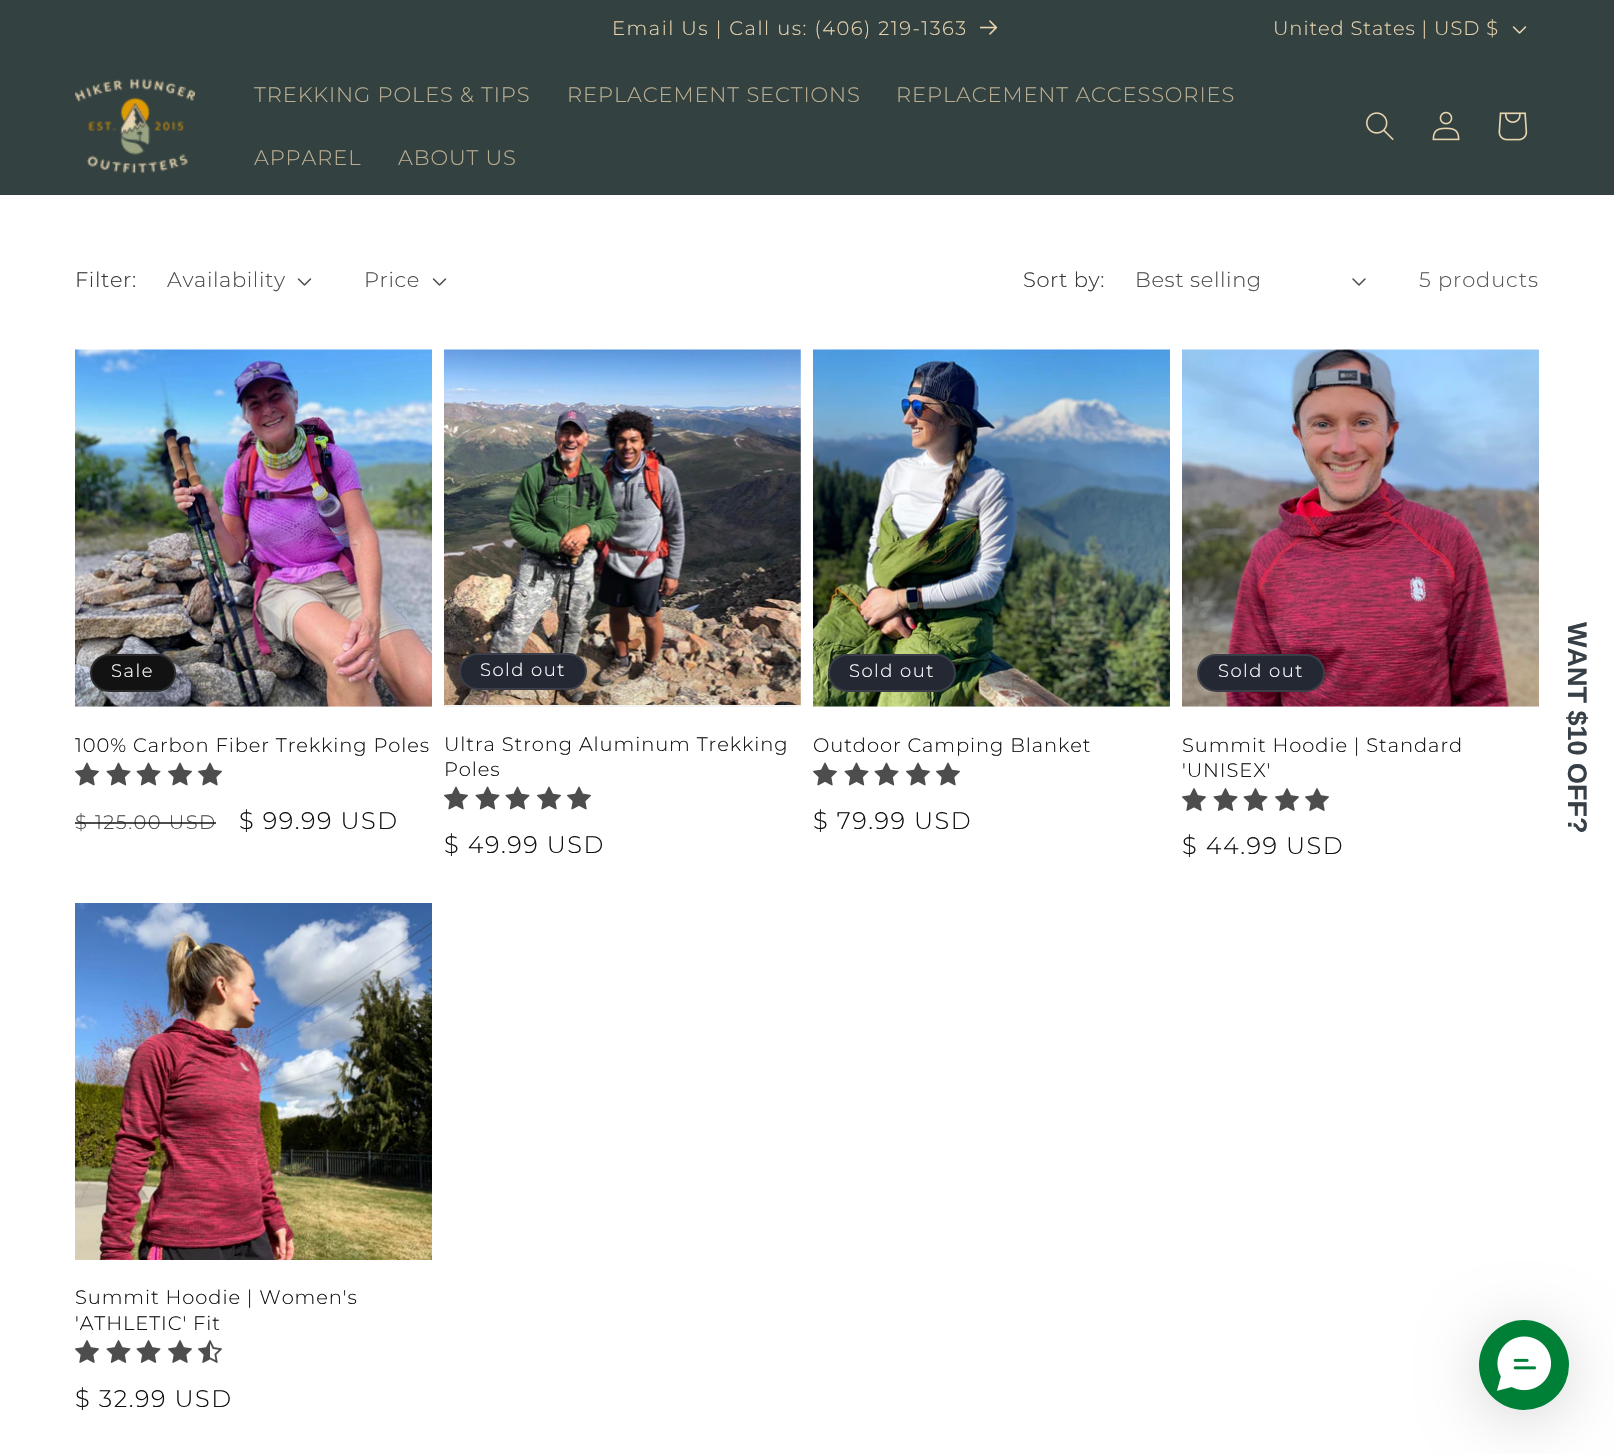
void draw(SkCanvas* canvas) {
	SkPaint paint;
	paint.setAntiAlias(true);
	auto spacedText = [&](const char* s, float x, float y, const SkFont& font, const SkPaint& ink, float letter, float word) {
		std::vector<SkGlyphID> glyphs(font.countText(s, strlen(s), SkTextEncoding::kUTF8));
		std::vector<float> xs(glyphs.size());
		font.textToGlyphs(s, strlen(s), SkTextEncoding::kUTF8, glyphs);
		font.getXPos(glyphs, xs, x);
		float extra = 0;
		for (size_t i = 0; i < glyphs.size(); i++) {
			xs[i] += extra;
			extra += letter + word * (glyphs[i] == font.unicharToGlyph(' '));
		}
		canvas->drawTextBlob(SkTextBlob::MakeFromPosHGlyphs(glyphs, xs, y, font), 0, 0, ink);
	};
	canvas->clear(0xffffffff);
	paint.setColor(0xff334140);
	canvas->drawRect(SkRect::MakeXYWH(0, 0, 1614, 195), paint);
	SkFont f1(fontMgr->matchFamilyStyle("Montserrat", SkFontStyle(300, SkFontStyle::kNormal_Width, SkFontStyle::kUpright_Slant)), 19.5);
	f1.setSubpixel(true);
	paint.setColor(0xffe8d4af);
	spacedText("Email Us | Call us: (406) 219-1363", 612, 35, f1, paint, 1.5, 0);
	canvas->drawImageRect(SkImages::DeferredFromEncodedData(SkData::MakeFromFileName("img1.png")), SkRect::MakeXYWH(980, 20, 18, 15), SkSamplingOptions());
	spacedText("United States | USD $", 1273, 35, f1, paint, 0.9, 0);
	canvas->drawImageRect(SkImages::DeferredFromEncodedData(SkData::MakeFromFileName("img2.png")), SkRect::MakeXYWH(1512, 26, 15, 8), SkSamplingOptions());
	canvas->drawImageRect(SkImages::DeferredFromEncodedData(SkData::MakeFromFileName("img3.png")), SkRect::MakeXYWH(75, 79, 120, 94), SkSamplingOptions());
	SkFont f2(fontMgr->matchFamilyStyle("Montserrat", SkFontStyle(300, SkFontStyle::kNormal_Width, SkFontStyle::kUpright_Slant)), 21);
	f2.setSubpixel(true);
	paint.setColor(0xffbbaf93);
	spacedText("TREKKING POLES & TIPS", 254, 102, f2, paint, 0.9, 0);
	spacedText("REPLACEMENT SECTIONS", 567, 102, f2, paint, 0.9, 0);
	spacedText("REPLACEMENT ACCESSORIES", 896, 102, f2, paint, 0.9, 0);
	spacedText("APPAREL", 254, 165, f2, paint, 0.9, 0);
	spacedText("ABOUT US", 398, 165, f2, paint, 0.9, 0);
	canvas->drawImageRect(SkImages::DeferredFromEncodedData(SkData::MakeFromFileName("img4.png")), SkRect::MakeXYWH(1366, 112, 28, 28), SkSamplingOptions());
	canvas->drawImageRect(SkImages::DeferredFromEncodedData(SkData::MakeFromFileName("img5.png")), SkRect::MakeXYWH(1432, 111, 28, 30), SkSamplingOptions());
	canvas->drawImageRect(SkImages::DeferredFromEncodedData(SkData::MakeFromFileName("img6.png")), SkRect::MakeXYWH(1498, 112, 30, 29), SkSamplingOptions());
	paint.setColor(0xff363636);
	spacedText("Filter:", 75, 287, f2, paint, 0.6, 0);
	paint.setColor(0xff4d4d4d);
	spacedText("Availability", 167, 287, f2, paint, 0.6, 0);
	canvas->drawImageRect(SkImages::DeferredFromEncodedData(SkData::MakeFromFileName("img7.png")), SkRect::MakeXYWH(297, 278, 15, 8), SkSamplingOptions());
	spacedText("Price", 364, 287, f2, paint, 0.6, 0);
	canvas->drawImageRect(SkImages::DeferredFromEncodedData(SkData::MakeFromFileName("img7.png")), SkRect::MakeXYWH(432, 278, 15, 8), SkSamplingOptions());
	paint.setColor(0xff363636);
	spacedText("Sort by:", 1023, 287, f2, paint, 0.6, 0);
	paint.setColor(0xff4d4d4d);
	spacedText("Best selling", 1135, 287, f2, paint, 0.6, 0);
	canvas->drawImageRect(SkImages::DeferredFromEncodedData(SkData::MakeFromFileName("img8.png")), SkRect::MakeXYWH(1352, 278, 14, 8), SkSamplingOptions());
	paint.setColor(0xff595959);
	spacedText("5 products", 1419, 287, f2, paint, 0.9, 0);
	paint.setColor(0xfff3f3f3);
	canvas->drawRect(SkRect::MakeXYWH(75, 706, 357, 1), paint);
	canvas->drawImageRect(SkImages::DeferredFromEncodedData(SkData::MakeFromFileName("img9.png")), SkRect::MakeXYWH(75, 349, 357, 358), SkSamplingOptions());
	paint.setColor(0xff121212);
	canvas->drawRoundRect(SkRect::MakeXYWH(90, 654, 86, 38), 19, 19, paint);
	paint.setStroke(true);
	paint.setStrokeWidth(2);
	paint.setColor(0x1affffff);
	canvas->drawRoundRect(SkRect::MakeXYWH(91, 655, 84, 36), 18, 18, paint);
	SkFont f3(fontMgr->matchFamilyStyle("Montserrat", SkFontStyle(300, SkFontStyle::kNormal_Width, SkFontStyle::kUpright_Slant)), 18);
	f3.setSubpixel(true);
	paint.setStroke(false);
	paint.setColor(0xffffffff);
	spacedText("Sale", 111, 677, f3, paint, 1.5, 0);
	paint.setColor(0xff121212);
	spacedText("100% Carbon Fiber Trekking Poles", 75, 752, f1, paint, 0.9, 0);
	canvas->drawImageRect(SkImages::DeferredFromEncodedData(SkData::MakeFromFileName("img10.png")), SkRect::MakeXYWH(75, 762, 24, 24), SkSamplingOptions());
	canvas->drawImageRect(SkImages::DeferredFromEncodedData(SkData::MakeFromFileName("img11.png")), SkRect::MakeXYWH(106, 762, 25, 24), SkSamplingOptions());
	canvas->drawImageRect(SkImages::DeferredFromEncodedData(SkData::MakeFromFileName("img11.png")), SkRect::MakeXYWH(136, 762, 25, 24), SkSamplingOptions());
	canvas->drawImageRect(SkImages::DeferredFromEncodedData(SkData::MakeFromFileName("img10.png")), SkRect::MakeXYWH(168, 762, 24, 24), SkSamplingOptions());
	canvas->drawImageRect(SkImages::DeferredFromEncodedData(SkData::MakeFromFileName("img10.png")), SkRect::MakeXYWH(198, 762, 24, 24), SkSamplingOptions());
	paint.setColor(0xff4d4d4d);
	spacedText("$ 125.00 USD", 75, 829, f1, paint, 1.5, 0);
	paint.setColor(0xbf121212);
	canvas->drawRect(SkRect::MakeXYWH(75, 822, 141, 2), paint);
	SkFont f4(fontMgr->matchFamilyStyle("Montserrat", SkFontStyle(300, SkFontStyle::kNormal_Width, SkFontStyle::kUpright_Slant)), 24);
	f4.setSubpixel(true);
	paint.setColor(0xff121212);
	spacedText("$ 99.99 USD", 239, 829, f4, paint, 1.5, 0);
	paint.setColor(0xfff3f3f3);
	canvas->drawRect(SkRect::MakeXYWH(444, 350, 357, 357), paint);
	canvas->drawImageRect(SkImages::DeferredFromEncodedData(SkData::MakeFromFileName("img12.png")), SkRect::MakeXYWH(444, 349, 357, 356), SkSamplingOptions());
	paint.setColor(0xff242833);
	canvas->drawRoundRect(SkRect::MakeXYWH(459, 653, 128, 37), 18.5, 18.5, paint);
	paint.setStroke(true);
	paint.setColor(0x1affffff);
	canvas->drawRoundRect(SkRect::MakeXYWH(460, 654, 126, 35), 17.5, 17.5, paint);
	paint.setStroke(false);
	paint.setColor(0xffffffff);
	spacedText("Sold out", 480, 676, f3, paint, 1.5, 0);
	paint.setColor(0xff121212);
	spacedText("Ultra Strong Aluminum Trekking", 444, 751, f1, paint, 0.9, 0);
	spacedText("Poles", 444, 776, f1, paint, 0.9, 0);
	canvas->drawImageRect(SkImages::DeferredFromEncodedData(SkData::MakeFromFileName("img10.png")), SkRect::MakeXYWH(444, 786, 24, 24), SkSamplingOptions());
	canvas->drawImageRect(SkImages::DeferredFromEncodedData(SkData::MakeFromFileName("img11.png")), SkRect::MakeXYWH(475, 786, 25, 24), SkSamplingOptions());
	canvas->drawImageRect(SkImages::DeferredFromEncodedData(SkData::MakeFromFileName("img11.png")), SkRect::MakeXYWH(505, 786, 25, 24), SkSamplingOptions());
	canvas->drawImageRect(SkImages::DeferredFromEncodedData(SkData::MakeFromFileName("img10.png")), SkRect::MakeXYWH(537, 786, 24, 24), SkSamplingOptions());
	canvas->drawImageRect(SkImages::DeferredFromEncodedData(SkData::MakeFromFileName("img10.png")), SkRect::MakeXYWH(567, 786, 24, 24), SkSamplingOptions());
	spacedText("$ 49.99 USD", 444, 853, f4, paint, 1.5, 0);
	paint.setColor(0xfff3f3f3);
	canvas->drawRect(SkRect::MakeXYWH(813, 706, 357, 1), paint);
	canvas->drawImageRect(SkImages::DeferredFromEncodedData(SkData::MakeFromFileName("img13.png")), SkRect::MakeXYWH(813, 349, 357, 358), SkSamplingOptions());
	paint.setColor(0xff242833);
	canvas->drawRoundRect(SkRect::MakeXYWH(828, 654, 128, 38), 19, 19, paint);
	paint.setStroke(true);
	paint.setColor(0x1affffff);
	canvas->drawRoundRect(SkRect::MakeXYWH(829, 655, 126, 36), 18, 18, paint);
	paint.setStroke(false);
	paint.setColor(0xffffffff);
	spacedText("Sold out", 849, 677, f3, paint, 1.5, 0);
	paint.setColor(0xff121212);
	spacedText("Outdoor Camping Blanket", 813, 752, f1, paint, 0.9, 0);
	canvas->drawImageRect(SkImages::DeferredFromEncodedData(SkData::MakeFromFileName("img10.png")), SkRect::MakeXYWH(813, 762, 24, 24), SkSamplingOptions());
	canvas->drawImageRect(SkImages::DeferredFromEncodedData(SkData::MakeFromFileName("img11.png")), SkRect::MakeXYWH(844, 762, 25, 24), SkSamplingOptions());
	canvas->drawImageRect(SkImages::DeferredFromEncodedData(SkData::MakeFromFileName("img11.png")), SkRect::MakeXYWH(874, 762, 25, 24), SkSamplingOptions());
	canvas->drawImageRect(SkImages::DeferredFromEncodedData(SkData::MakeFromFileName("img10.png")), SkRect::MakeXYWH(906, 762, 24, 24), SkSamplingOptions());
	canvas->drawImageRect(SkImages::DeferredFromEncodedData(SkData::MakeFromFileName("img10.png")), SkRect::MakeXYWH(936, 762, 24, 24), SkSamplingOptions());
	spacedText("$ 79.99 USD", 813, 829, f4, paint, 1.5, 0);
	paint.setColor(0xfff3f3f3);
	canvas->drawRect(SkRect::MakeXYWH(1182, 706, 357, 1), paint);
	canvas->drawImageRect(SkImages::DeferredFromEncodedData(SkData::MakeFromFileName("img14.png")), SkRect::MakeXYWH(1182, 349, 357, 358), SkSamplingOptions());
	paint.setColor(0xff242833);
	canvas->drawRoundRect(SkRect::MakeXYWH(1197, 654, 128, 38), 19, 19, paint);
	paint.setStroke(true);
	paint.setColor(0x1affffff);
	canvas->drawRoundRect(SkRect::MakeXYWH(1198, 655, 126, 36), 18, 18, paint);
	paint.setStroke(false);
	paint.setColor(0xffffffff);
	spacedText("Sold out", 1218, 677, f3, paint, 1.5, 0);
	paint.setColor(0xff121212);
	spacedText("Summit Hoodie | Standard", 1182, 752, f1, paint, 0.9, 0);
	spacedText("'UNISEX'", 1182, 777, f1, paint, 0.9, 0);
	canvas->drawImageRect(SkImages::DeferredFromEncodedData(SkData::MakeFromFileName("img15.png")), SkRect::MakeXYWH(1182, 788, 24, 23), SkSamplingOptions());
	canvas->drawImageRect(SkImages::DeferredFromEncodedData(SkData::MakeFromFileName("img16.png")), SkRect::MakeXYWH(1213, 788, 25, 23), SkSamplingOptions());
	canvas->drawImageRect(SkImages::DeferredFromEncodedData(SkData::MakeFromFileName("img16.png")), SkRect::MakeXYWH(1243, 788, 25, 23), SkSamplingOptions());
	canvas->drawImageRect(SkImages::DeferredFromEncodedData(SkData::MakeFromFileName("img15.png")), SkRect::MakeXYWH(1275, 788, 24, 23), SkSamplingOptions());
	canvas->drawImageRect(SkImages::DeferredFromEncodedData(SkData::MakeFromFileName("img15.png")), SkRect::MakeXYWH(1305, 788, 24, 23), SkSamplingOptions());
	spacedText("$ 44.99 USD", 1182, 854, f4, paint, 1.5, 0);
	canvas->drawImageRect(SkImages::DeferredFromEncodedData(SkData::MakeFromFileName("img17.png")), SkRect::MakeXYWH(75, 903, 357, 357), SkSamplingOptions());
	spacedText("Summit Hoodie | Women's", 75, 1304, f1, paint, 0.9, 0);
	spacedText("'ATHLETIC' Fit", 75, 1330, f1, paint, 0.9, 0);
	canvas->drawImageRect(SkImages::DeferredFromEncodedData(SkData::MakeFromFileName("img15.png")), SkRect::MakeXYWH(75, 1340, 24, 23), SkSamplingOptions());
	canvas->drawImageRect(SkImages::DeferredFromEncodedData(SkData::MakeFromFileName("img16.png")), SkRect::MakeXYWH(106, 1340, 25, 23), SkSamplingOptions());
	canvas->drawImageRect(SkImages::DeferredFromEncodedData(SkData::MakeFromFileName("img16.png")), SkRect::MakeXYWH(136, 1340, 25, 23), SkSamplingOptions());
	canvas->drawImageRect(SkImages::DeferredFromEncodedData(SkData::MakeFromFileName("img15.png")), SkRect::MakeXYWH(168, 1340, 24, 23), SkSamplingOptions());
	canvas->drawImageRect(SkImages::DeferredFromEncodedData(SkData::MakeFromFileName("img18.png")), SkRect::MakeXYWH(198, 1340, 24, 23), SkSamplingOptions());
	spacedText("$ 32.99 USD", 75, 1407, f4, paint, 1.5, 0);
	SkFont f5(fontMgr->matchFamilyStyle("Liberation Sans", SkFontStyle::Bold()), 27);
	f5.setSubpixel(true);
	paint.setColor(0xff373f47);
	canvas->save();
	canvas->rotate(90, 1568, 622);
	canvas->drawString("WANT $10 OFF?", 1568, 622, f5, paint);
	canvas->restore();
	paint.setColor(0x29000000);
	paint.setMaskFilter(SkMaskFilter::MakeBlur(kNormal_SkBlurStyle, 30));
	canvas->drawRoundRect(SkRect::MakeXYWH(1479, 1328, 90, 90), 45, 45, paint);
	paint.setMaskFilter(nullptr);
	paint.setColor(0xff008037);
	canvas->drawCircle(1524, 1365, 45, paint);
	canvas->drawImageRect(SkImages::DeferredFromEncodedData(SkData::MakeFromFileName("img19.png")), SkRect::MakeXYWH(1497, 1336, 54, 55), SkSamplingOptions());
}
